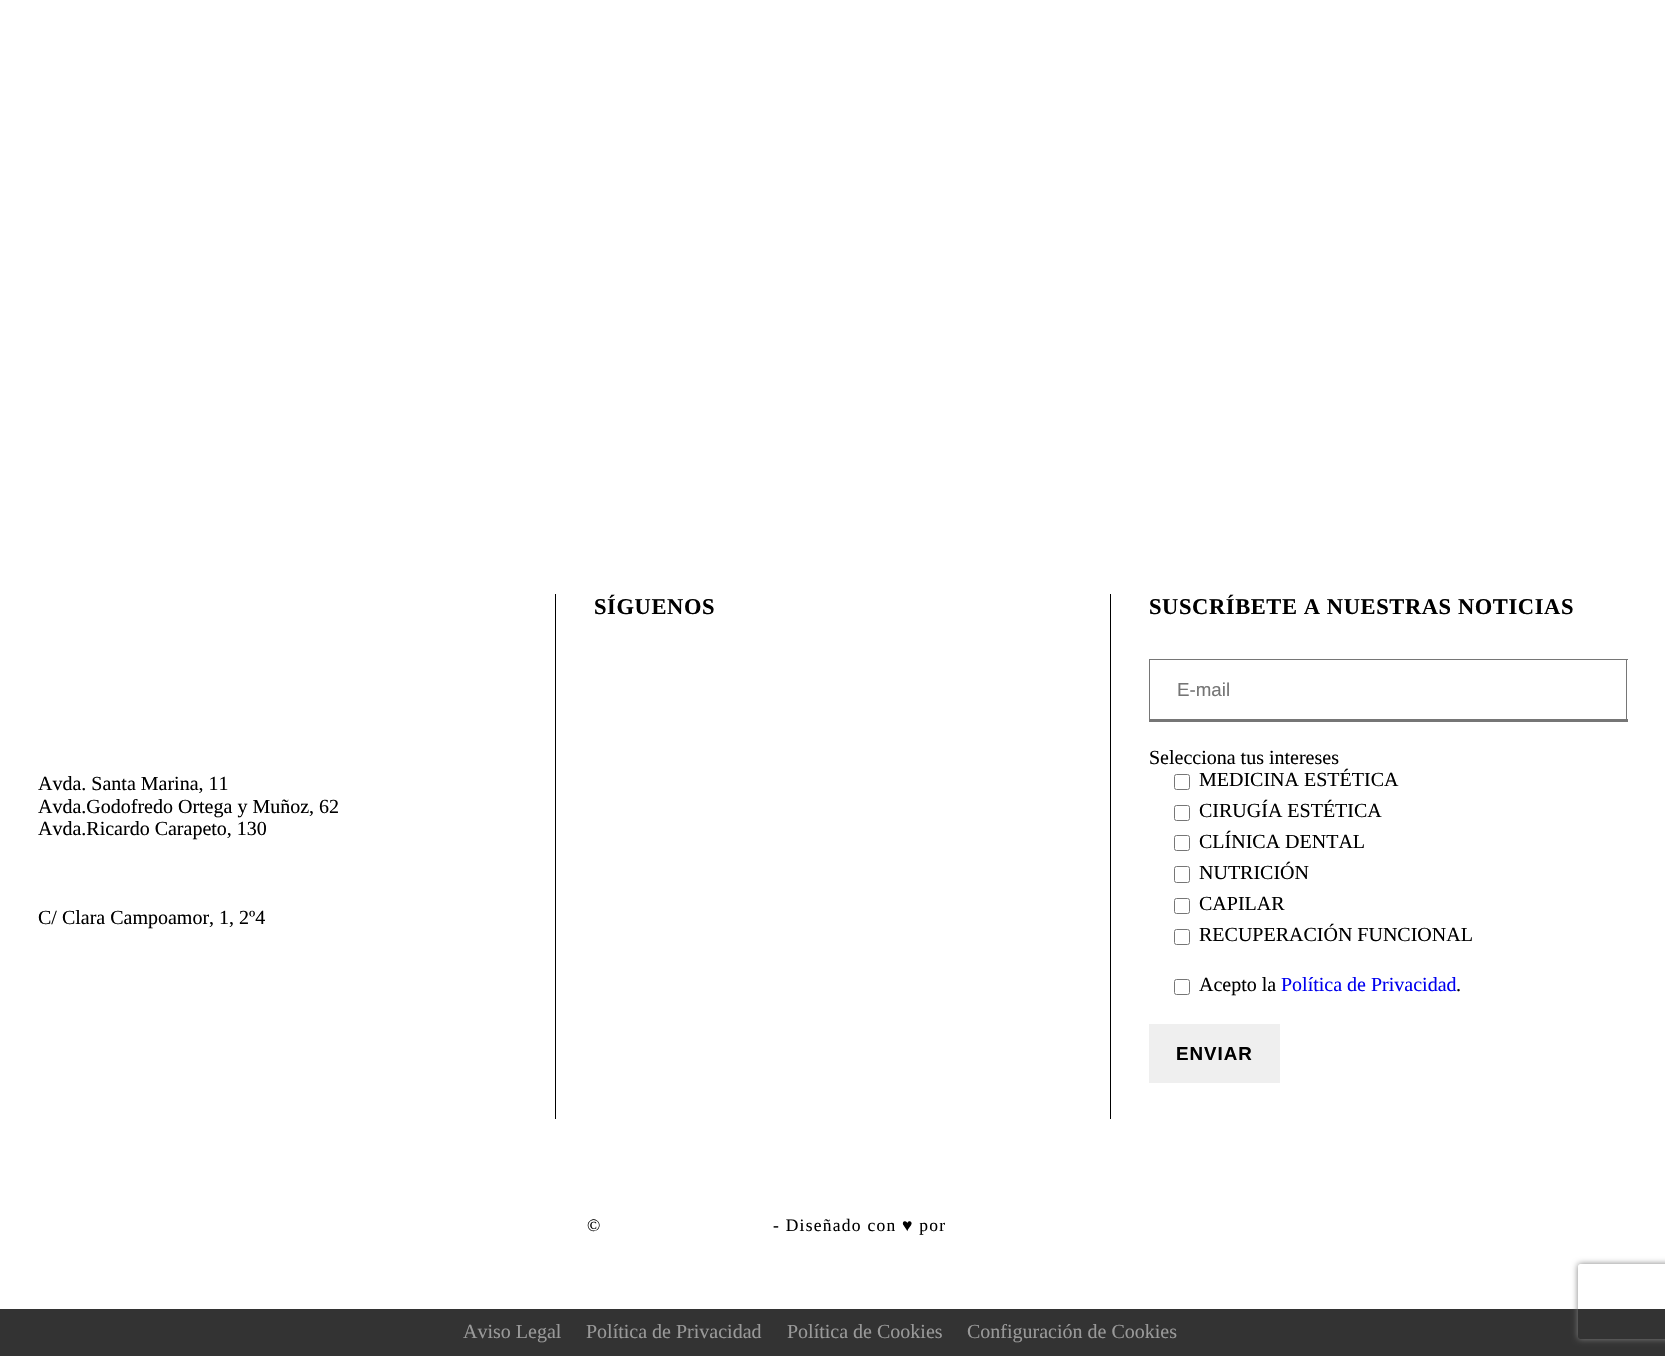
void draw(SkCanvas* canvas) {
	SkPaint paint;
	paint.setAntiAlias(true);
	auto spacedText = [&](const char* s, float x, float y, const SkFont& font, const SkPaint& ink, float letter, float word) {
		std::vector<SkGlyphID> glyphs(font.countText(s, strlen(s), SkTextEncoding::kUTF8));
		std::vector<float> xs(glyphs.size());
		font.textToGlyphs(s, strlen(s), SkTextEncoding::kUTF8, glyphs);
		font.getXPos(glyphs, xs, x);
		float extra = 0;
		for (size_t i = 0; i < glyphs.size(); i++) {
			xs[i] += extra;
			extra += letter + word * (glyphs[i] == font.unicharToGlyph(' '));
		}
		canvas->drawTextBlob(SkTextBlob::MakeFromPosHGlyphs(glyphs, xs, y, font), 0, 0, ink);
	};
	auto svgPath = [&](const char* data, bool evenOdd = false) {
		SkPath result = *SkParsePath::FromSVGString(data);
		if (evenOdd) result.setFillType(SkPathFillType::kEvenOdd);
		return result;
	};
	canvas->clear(0xffffffff);
	SkFont f1(fontMgr->matchFamilyStyle("Liberation Serif", SkFontStyle::Normal()), 20);
	f1.setSubpixel(true);
	paint.setColor(0xff000000);
	canvas->drawString("Avda. Santa Marina, 11", 38, 790, f1, paint);
	canvas->drawString("Avda.Godofredo Ortega y Muñoz, 62", 38, 813, f1, paint);
	canvas->drawString("Avda.Ricardo Carapeto, 130", 38, 835, f1, paint);
	canvas->drawString("C/ Clara Campoamor, 1, 2º4", 38, 924, f1, paint);
	canvas->drawRect(SkRect::MakeXYWH(555, 594, 1, 525), paint);
	SkFont f2(fontMgr->matchFamilyStyle("Liberation Serif", SkFontStyle::Bold()), 22.5);
	f2.setSubpixel(true);
	spacedText("SÍGUENOS", 594, 614, f2, paint, 0.6, 0);
	canvas->drawRect(SkRect::MakeXYWH(1110, 594, 1, 525), paint);
	spacedText("SUSCRÍBETE A NUESTRAS NOTICIAS", 1149, 614, f2, paint, 0.6, 0);
	paint.setColor(0xff767676);
	canvas->drawRect(SkRect::MakeXYWH(1149, 659, 479, 1), paint);
	canvas->drawRect(SkRect::MakeXYWH(1626, 659, 1, 62), paint);
	canvas->drawRect(SkRect::MakeXYWH(1149, 719, 479, 3), paint);
	canvas->drawRect(SkRect::MakeXYWH(1149, 659, 1, 62), paint);
	SkFont f3(fontMgr->matchFamilyStyle("Liberation Sans", SkFontStyle::Normal()), 18.75);
	f3.setSubpixel(true);
	paint.setColor(0xff757575);
	canvas->drawString("E-mail", 1177, 696, f3, paint);
	paint.setColor(0xff000000);
	canvas->drawString("Selecciona tus intereses", 1149, 764, f1, paint);
	paint.setStroke(true);
	paint.setStrokeWidth(1);
	paint.setColor(0xff767676);
	canvas->drawRoundRect(SkRect::MakeXYWH(1174.5, 774.5, 15, 15), 2, 2, paint);
	paint.setStroke(false);
	paint.setColor(0xff000000);
	canvas->drawString("MEDICINA ESTÉTICA", 1199, 786, f1, paint);
	paint.setStroke(true);
	paint.setColor(0xff767676);
	canvas->drawRoundRect(SkRect::MakeXYWH(1174.5, 805.5, 15, 15), 2, 2, paint);
	paint.setStroke(false);
	paint.setColor(0xff000000);
	canvas->drawString("CIRUGÍA ESTÉTICA", 1199, 817, f1, paint);
	paint.setStroke(true);
	paint.setColor(0xff767676);
	canvas->drawRoundRect(SkRect::MakeXYWH(1174.5, 835.5, 15, 15), 2, 2, paint);
	paint.setStroke(false);
	paint.setColor(0xff000000);
	canvas->drawString("CLÍNICA DENTAL", 1199, 848, f1, paint);
	paint.setStroke(true);
	paint.setColor(0xff767676);
	canvas->drawRoundRect(SkRect::MakeXYWH(1174.5, 866.5, 15, 16), 2, 2, paint);
	paint.setStroke(false);
	paint.setColor(0xff000000);
	canvas->drawString("NUTRICIÓN", 1199, 879, f1, paint);
	paint.setStroke(true);
	paint.setColor(0xff767676);
	canvas->drawRoundRect(SkRect::MakeXYWH(1174.5, 898.5, 15, 15), 2, 2, paint);
	paint.setStroke(false);
	paint.setColor(0xff000000);
	canvas->drawString("CAPILAR", 1199, 910, f1, paint);
	paint.setStroke(true);
	paint.setColor(0xff767676);
	canvas->drawRoundRect(SkRect::MakeXYWH(1174.5, 929.5, 15, 15), 2, 2, paint);
	paint.setStroke(false);
	paint.setColor(0xff000000);
	canvas->drawString("RECUPERACIÓN FUNCIONAL", 1199, 941, f1, paint);
	paint.setStroke(true);
	paint.setColor(0xff767676);
	canvas->drawRoundRect(SkRect::MakeXYWH(1174.5, 979.5, 15, 15), 2, 2, paint);
	paint.setStroke(false);
	paint.setColor(0xff000000);
	canvas->drawString("Acepto la", 1199, 991, f1, paint);
	paint.setColor(0xff0000ee);
	canvas->drawString("Política de Privacidad", 1281, 991, f1, paint);
	paint.setColor(0xff000000);
	canvas->drawString(".", 1456, 991, f1, paint);
	paint.setColor(0xffefefef);
	canvas->drawRect(SkRect::MakeXYWH(1149, 1024, 131, 59), paint);
	SkFont f4(fontMgr->matchFamilyStyle("Liberation Sans", SkFontStyle::Bold()), 18.75);
	f4.setSubpixel(true);
	paint.setColor(0xff000000);
	spacedText("ENVIAR", 1176, 1060, f4, paint, 1, 0);
	SkFont f5(fontMgr->matchFamilyStyle("Liberation Serif", SkFontStyle::Normal()), 17.5);
	f5.setSubpixel(true);
	spacedText("©", 587, 1231, f5, paint, 1.25, 0);
	spacedText("- Diseñado con ♥ por", 773, 1231, f5, paint, 1.25, 0);
	paint.setColor(0xff333333);
	canvas->drawRect(SkRect::MakeXYWH(0, 1309, 1665, 47), paint);
	paint.setColor(0xff999999);
	canvas->drawString("Aviso Legal", 463, 1338, f1, paint);
	canvas->drawString("Política de Privacidad", 586, 1338, f1, paint);
	canvas->drawString("Política de Cookies", 787, 1338, f1, paint);
	canvas->drawString("Configuración de Cookies", 967, 1338, f1, paint);
	canvas->save();
	canvas->clipPath(svgPath("M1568 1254H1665V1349H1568ZM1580.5 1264H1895.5C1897 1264 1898 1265 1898 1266.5V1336.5C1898 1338 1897 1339 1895.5 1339H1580.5C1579 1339 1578 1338 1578 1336.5V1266.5C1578 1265 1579 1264 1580.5 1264Z", true), true);
	paint.setColor(0xff808080);
	paint.setMaskFilter(SkMaskFilter::MakeBlur(kNormal_SkBlurStyle, 3));
	canvas->drawRoundRect(SkRect::MakeXYWH(1578, 1264, 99, 75), 2.5, 2.5, paint);
	paint.setMaskFilter(nullptr);
	canvas->restore();
}
